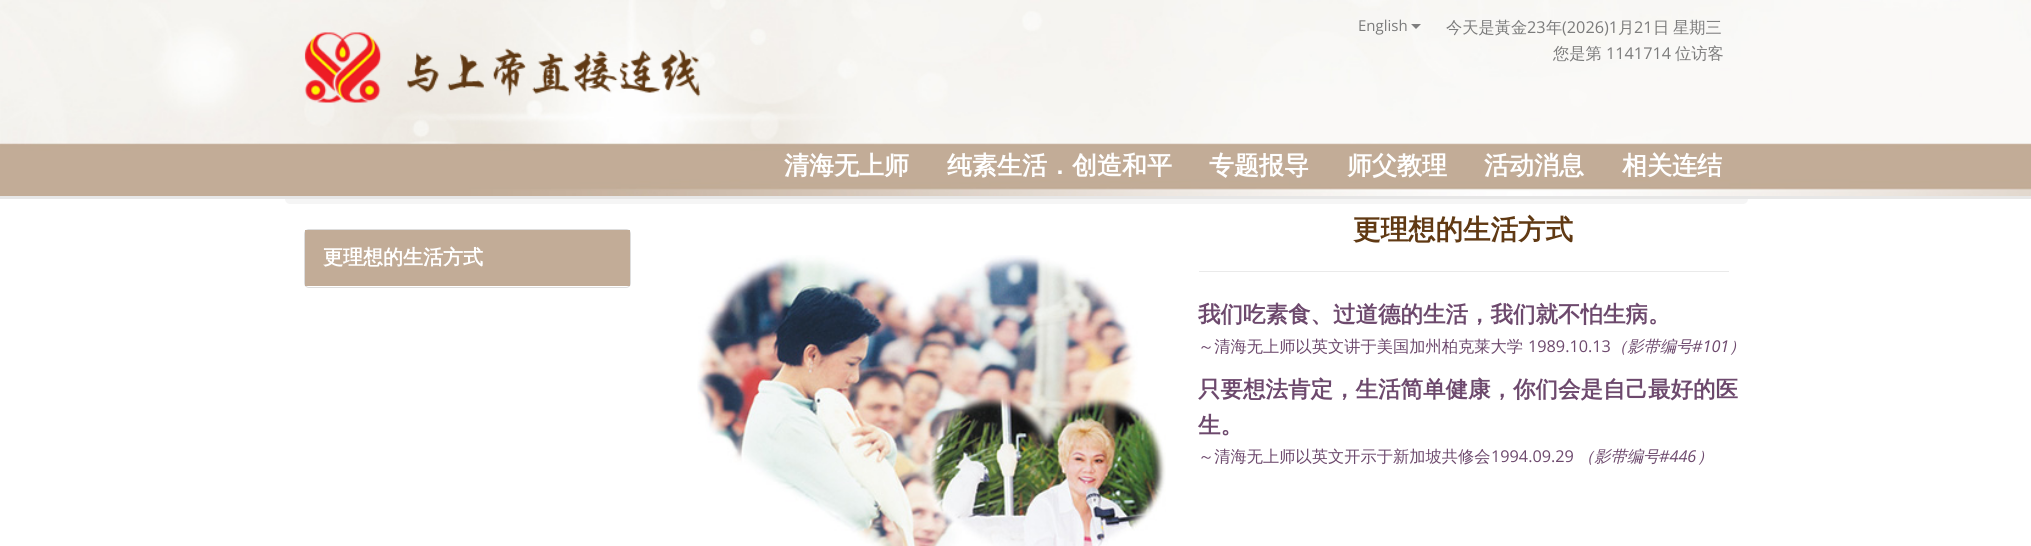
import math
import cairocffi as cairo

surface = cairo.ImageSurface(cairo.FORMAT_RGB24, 2031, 546)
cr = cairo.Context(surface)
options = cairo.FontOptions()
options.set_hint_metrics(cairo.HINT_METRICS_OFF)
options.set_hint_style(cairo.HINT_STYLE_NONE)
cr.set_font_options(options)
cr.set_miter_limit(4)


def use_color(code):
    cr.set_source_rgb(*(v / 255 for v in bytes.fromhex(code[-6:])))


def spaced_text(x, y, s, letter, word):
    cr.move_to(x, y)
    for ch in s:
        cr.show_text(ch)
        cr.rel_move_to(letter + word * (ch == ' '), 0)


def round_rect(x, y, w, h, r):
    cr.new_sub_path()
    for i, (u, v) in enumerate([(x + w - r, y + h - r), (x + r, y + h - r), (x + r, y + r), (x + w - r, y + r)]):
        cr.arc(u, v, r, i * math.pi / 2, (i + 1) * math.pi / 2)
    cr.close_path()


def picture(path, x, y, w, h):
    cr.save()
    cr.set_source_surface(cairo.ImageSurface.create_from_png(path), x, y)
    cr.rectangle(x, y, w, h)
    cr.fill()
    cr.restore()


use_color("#ffffff")
cr.paint()
use_color("#f5f5f5")
round_rect(285, 143, 1463, 61, 5)
cr.fill()
picture("img1.png", 0, 0, 2031, 196)
use_color("#e7e7e7")
cr.rectangle(0, 196, 2031, 3)
cr.fill()
picture("img2.png", 304, 32, 397, 71)
cr.select_font_face("Open Sans")
cr.set_font_size(15)
use_color("#7b7b7b")
cr.move_to(1358, 31)
cr.show_text("English")
use_color("#808080")
cr.new_path()
cr.move_to(1411, 24)
cr.line_to(1421, 24)
cr.line_to(1416, 29)
cr.close_path()
cr.fill()
cr.select_font_face("WenQuanYi Zen Hei Medium")
cr.set_font_size(16.25)
use_color("#7b7b7b")
cr.move_to(1446, 33)
cr.show_text("今天是黃金")
cr.select_font_face("Open Sans")
cr.move_to(1527, 33)
cr.show_text("23")
cr.select_font_face("WenQuanYi Zen Hei Medium")
cr.move_to(1546, 33)
cr.show_text("年")
cr.select_font_face("Open Sans")
cr.move_to(1562, 33)
cr.show_text("(2026)1")
cr.select_font_face("WenQuanYi Zen Hei Medium")
cr.move_to(1618, 33)
cr.show_text("月")
cr.select_font_face("Open Sans")
cr.move_to(1634, 33)
cr.show_text("21")
cr.select_font_face("WenQuanYi Zen Hei Medium")
spaced_text(1653, 33, "日 星期三", 0, -1)
cr.move_to(1553, 59)
cr.show_text("您是第")
cr.select_font_face("Open Sans")
cr.move_to(1606, 59)
cr.show_text("1141714")
cr.select_font_face("WenQuanYi Zen Hei Medium")
cr.move_to(1675, 59)
cr.show_text("位访客")
cr.select_font_face("WenQuanYi Zen Hei", cairo.FONT_SLANT_NORMAL, cairo.FONT_WEIGHT_BOLD)
cr.set_font_size(25)
use_color("#ffffff")
cr.move_to(784, 174)
cr.show_text("清海无上师")
cr.move_to(947, 174)
cr.show_text("纯素生活．创造和平")
cr.move_to(1209, 174)
cr.show_text("专题报导")
cr.move_to(1347, 174)
cr.show_text("师父教理")
cr.move_to(1484, 174)
cr.show_text("活动消息")
cr.move_to(1622, 174)
cr.show_text("相关连结")
round_rect(304.5, 229.5, 326, 58, 4.5)
use_color("#dddddd")
cr.set_line_width(1)
cr.stroke()
use_color("#c2ac97")
cr.rectangle(305, 230, 325, 56)
cr.fill()
cr.set_font_size(20)
use_color("#ffffff")
cr.move_to(323, 264)
cr.show_text("更理想的生活方式")
cr.set_font_size(27.5)
use_color("#603913")
cr.move_to(1353, 239)
cr.show_text("更理想的生活方式")
picture("img3.png", 697, 255, 469, 291)
use_color("#eaeaea")
cr.rectangle(1199, 271, 530, 1)
cr.fill()
cr.set_font_size(22.5)
use_color("#6d496d")
cr.move_to(1198, 322)
cr.show_text("我们吃素食、过道德的生活，我们就不怕生病。")
cr.select_font_face("WenQuanYi Zen Hei Medium")
cr.set_font_size(16.25)
cr.move_to(1198, 352)
cr.show_text("～清海无上师以英文讲于美国加州柏克莱大学")
cr.select_font_face("Open Sans")
cr.move_to(1528, 352)
cr.show_text("1989.10.13")
cr.select_font_face("WenQuanYi Zen Hei Medium", cairo.FONT_SLANT_ITALIC)
cr.move_to(1611, 352)
cr.show_text("（影带编号")
cr.select_font_face("Open Sans", cairo.FONT_SLANT_ITALIC)
cr.move_to(1692, 352)
cr.show_text("#101")
cr.select_font_face("WenQuanYi Zen Hei Medium", cairo.FONT_SLANT_ITALIC)
cr.move_to(1729, 352)
cr.show_text("）")
cr.select_font_face("WenQuanYi Zen Hei", cairo.FONT_SLANT_NORMAL, cairo.FONT_WEIGHT_BOLD)
cr.set_font_size(22.5)
cr.move_to(1198, 397)
cr.show_text("只要想法肯定，生活简单健康，你们会是自己最好的医")
cr.move_to(1198, 433)
cr.show_text("生。")
cr.select_font_face("WenQuanYi Zen Hei Medium")
cr.set_font_size(16.25)
cr.move_to(1198, 462)
cr.show_text("～清海无上师以英文开示于新加坡共修会")
cr.select_font_face("Open Sans")
cr.move_to(1491, 462)
cr.show_text("1994.09.29")
cr.select_font_face("WenQuanYi Zen Hei Medium", cairo.FONT_SLANT_ITALIC)
cr.move_to(1578, 462)
cr.show_text("（影带编号")
cr.select_font_face("Open Sans", cairo.FONT_SLANT_ITALIC)
cr.move_to(1659, 462)
cr.show_text("#446")
cr.select_font_face("WenQuanYi Zen Hei Medium", cairo.FONT_SLANT_ITALIC)
cr.move_to(1697, 462)
cr.show_text("）")
surface.write_to_png("result.png")
